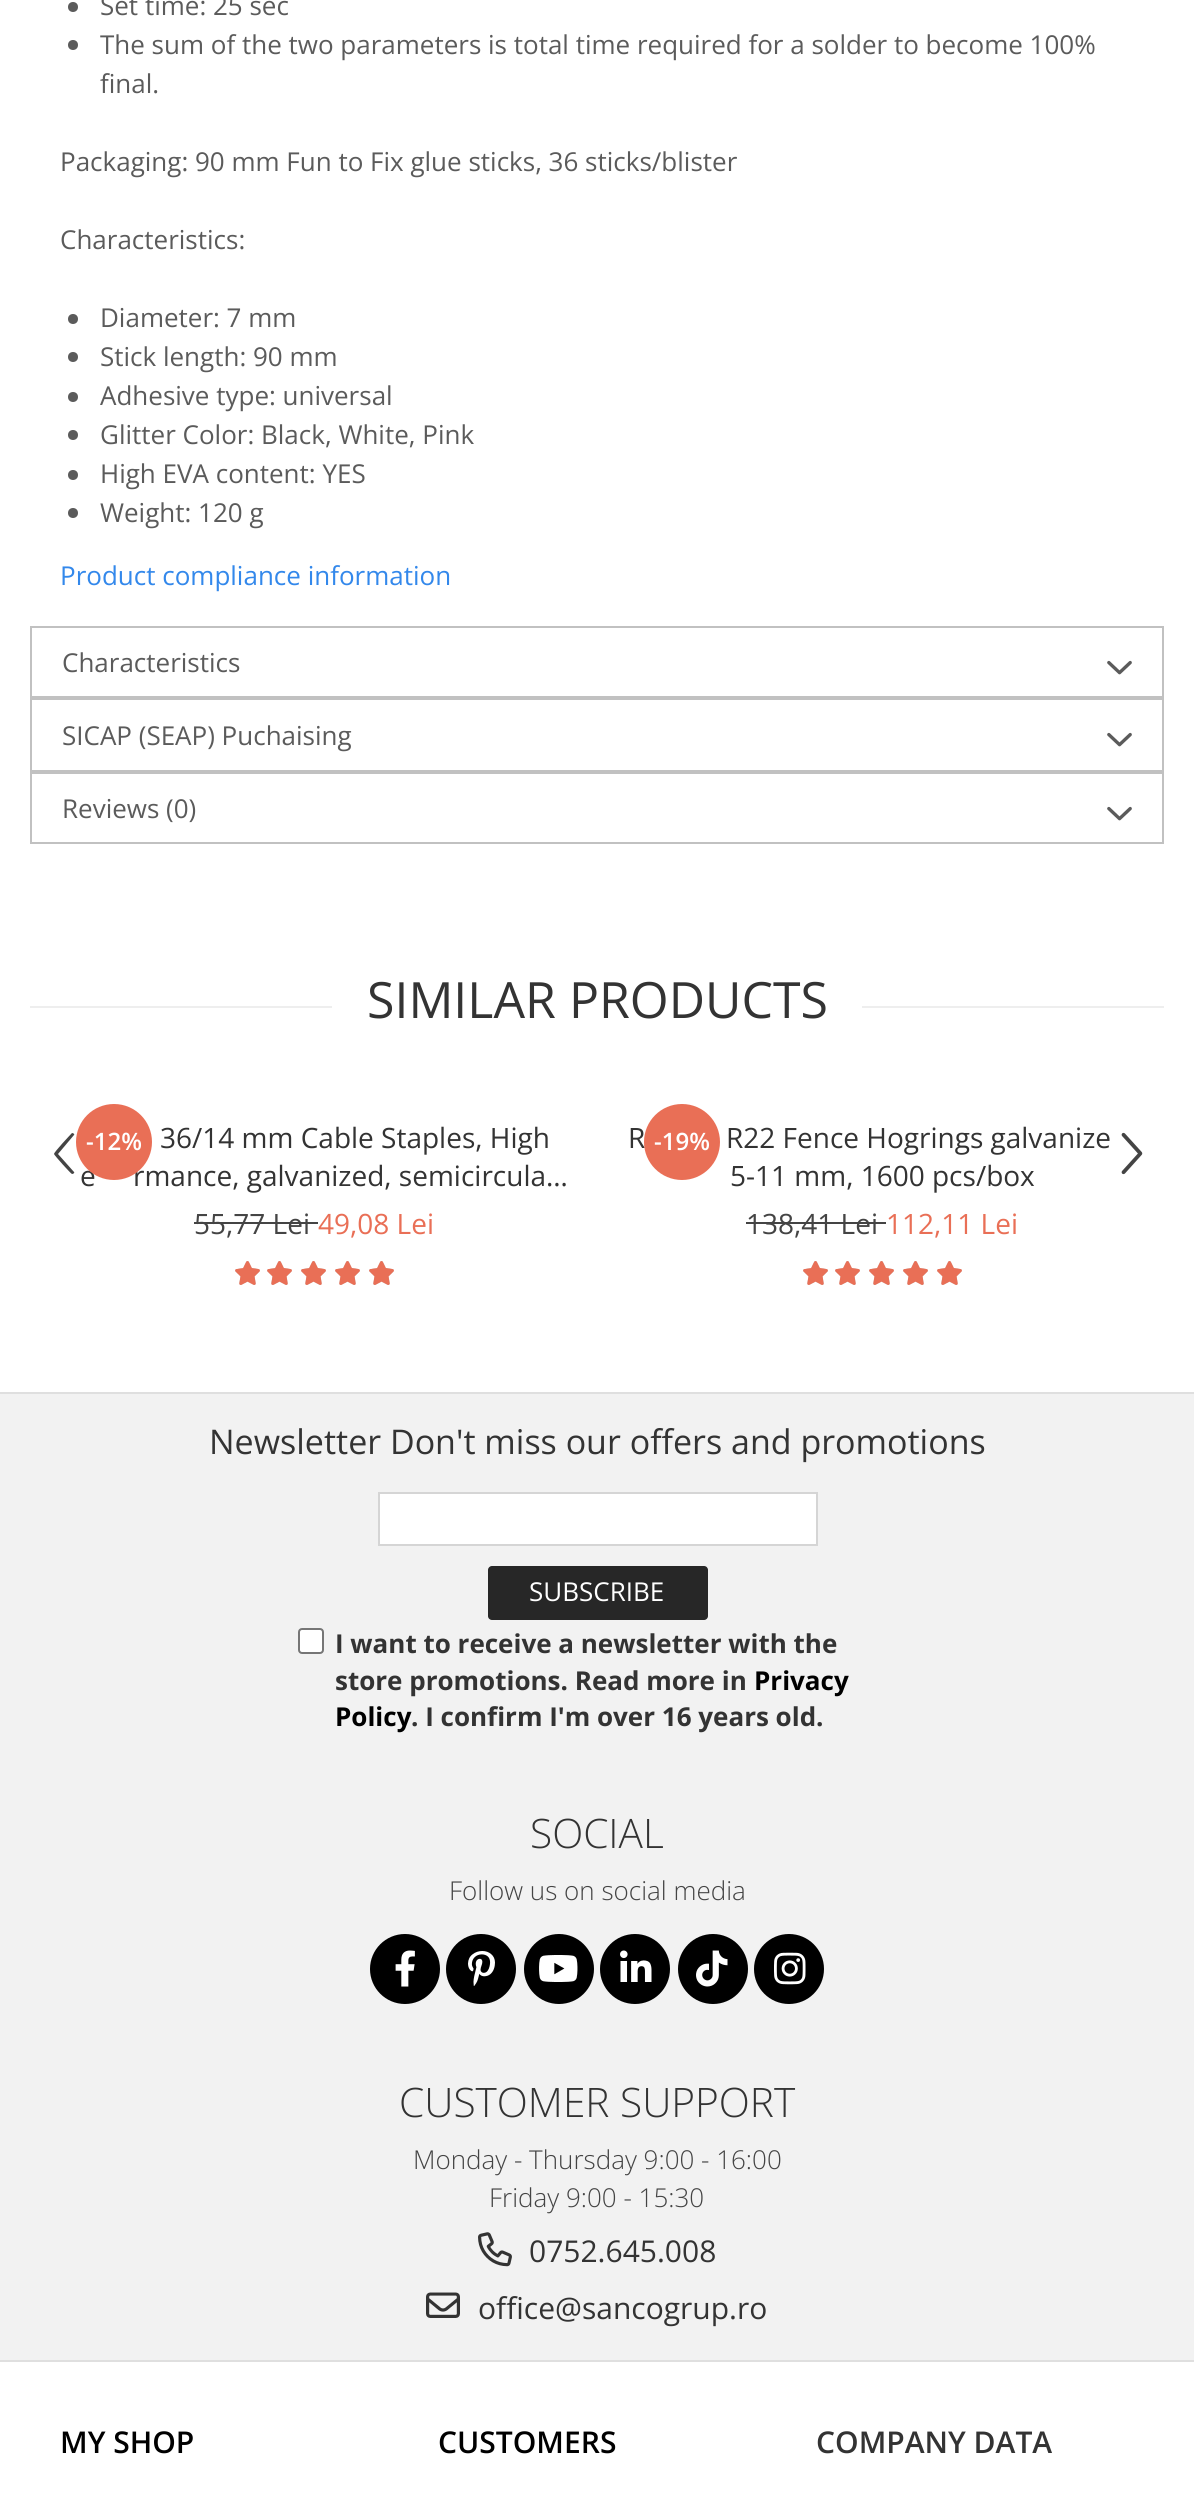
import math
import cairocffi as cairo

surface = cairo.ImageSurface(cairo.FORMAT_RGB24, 1194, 2510)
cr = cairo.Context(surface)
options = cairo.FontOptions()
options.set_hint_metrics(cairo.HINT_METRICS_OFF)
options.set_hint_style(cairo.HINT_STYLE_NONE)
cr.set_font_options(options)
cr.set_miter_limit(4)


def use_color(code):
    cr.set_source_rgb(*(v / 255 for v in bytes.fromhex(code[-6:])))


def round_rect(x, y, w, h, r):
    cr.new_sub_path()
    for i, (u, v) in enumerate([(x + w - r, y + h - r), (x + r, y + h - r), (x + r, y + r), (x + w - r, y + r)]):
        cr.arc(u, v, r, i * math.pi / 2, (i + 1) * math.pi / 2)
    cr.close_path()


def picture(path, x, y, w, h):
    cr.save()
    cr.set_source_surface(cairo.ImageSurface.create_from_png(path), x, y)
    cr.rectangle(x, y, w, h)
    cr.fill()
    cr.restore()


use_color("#ffffff")
cr.paint()
use_color("#5b5b5b")
cr.arc(73, 7, 5, 0, 2 * math.pi)
cr.fill()
cr.select_font_face("Open Sans")
cr.set_font_size(26)
cr.move_to(100, 15)
cr.show_text("Set time: 25 sec")
cr.new_path()
cr.arc(73, 45, 5, 0, 2 * math.pi)
cr.fill()
cr.move_to(100, 54)
cr.show_text("The sum of the two parameters is total time required for a solder to become 100%")
cr.move_to(100, 93)
cr.show_text("final.")
cr.move_to(60, 171)
cr.show_text("Packaging: 90 mm Fun to Fix glue sticks, 36 sticks/blister")
cr.move_to(60, 249)
cr.show_text("Characteristics:")
cr.new_path()
cr.arc(73, 319, 5, 0, 2 * math.pi)
cr.fill()
cr.move_to(100, 327)
cr.show_text("Diameter: 7 mm")
cr.new_path()
cr.arc(73, 357, 5, 0, 2 * math.pi)
cr.fill()
cr.move_to(100, 366)
cr.show_text("Stick length: 90 mm")
cr.new_path()
cr.arc(73, 397, 5, 0, 2 * math.pi)
cr.fill()
cr.move_to(100, 405)
cr.show_text("Adhesive type: universal")
cr.new_path()
cr.arc(73, 435, 5, 0, 2 * math.pi)
cr.fill()
cr.move_to(100, 444)
cr.show_text("Glitter Color: Black, White, Pink")
cr.new_path()
cr.arc(73, 475, 5, 0, 2 * math.pi)
cr.fill()
cr.move_to(100, 483)
cr.show_text("High EVA content: YES")
cr.new_path()
cr.arc(73, 513, 5, 0, 2 * math.pi)
cr.fill()
cr.move_to(100, 522)
cr.show_text("Weight: 120 g")
use_color("#3388eb")
cr.move_to(60, 585)
cr.show_text("Product compliance information")
cr.rectangle(31, 627, 1132, 70)
use_color("#c1c1c1")
cr.stroke()
use_color("#5b5b5b")
cr.move_to(62, 672)
cr.show_text("Characteristics")
picture("img1.png", 1107, 660, 25, 15)
cr.rectangle(31, 699, 1132, 72)
use_color("#c1c1c1")
cr.stroke()
use_color("#5b5b5b")
cr.move_to(62, 745)
cr.show_text("SICAP (SEAP) Puchaising")
picture("img1.png", 1107, 732, 25, 15)
cr.rectangle(31, 773, 1132, 70)
use_color("#c1c1c1")
cr.stroke()
use_color("#5b5b5b")
cr.move_to(62, 818)
cr.show_text("Reviews (0)")
picture("img1.png", 1107, 806, 25, 15)
use_color("#eeeeee")
cr.rectangle(30, 1006, 1134, 2)
cr.fill()
use_color("#ffffff")
cr.rectangle(332, 1006, 530, 2)
cr.fill()
cr.set_font_size(50)
use_color("#333333")
cr.move_to(367, 1018)
cr.show_text("SIMILAR PRODUCTS")
cr.set_font_size(28)
cr.move_to(160, 1148)
cr.show_text("36/14 mm Cable Staples, High")
cr.move_to(80, 1186)
cr.show_text("e")
cr.move_to(133, 1186)
cr.show_text("rmance, galvanized, semicircula…")
use_color("#444444")
cr.move_to(194, 1234)
cr.show_text("55,77 Lei")
cr.rectangle(194, 1222, 124, 2)
cr.fill()
use_color("#e96f56")
cr.move_to(318, 1234)
cr.show_text("49,08 Lei")
picture("img2.png", 235, 1261, 25, 24)
picture("img3.png", 235, 1261, 25, 24)
picture("img2.png", 267, 1261, 25, 24)
picture("img3.png", 267, 1261, 25, 24)
picture("img2.png", 301, 1261, 25, 24)
picture("img3.png", 301, 1261, 25, 24)
picture("img2.png", 335, 1261, 25, 24)
picture("img3.png", 335, 1261, 25, 24)
picture("img2.png", 369, 1261, 25, 24)
picture("img3.png", 369, 1261, 25, 24)
cr.arc(114, 1142, 38, 0, 2 * math.pi)
cr.fill()
cr.select_font_face("Open Sans SemiBold")
cr.set_font_size(24)
use_color("#ffffff")
cr.move_to(86, 1150)
cr.show_text("-12%")
cr.select_font_face("Open Sans")
cr.set_font_size(28)
use_color("#333333")
cr.move_to(628, 1148)
cr.show_text("R")
cr.move_to(726, 1148)
cr.show_text("R22 Fence Hogrings galvanize")
cr.move_to(730, 1186)
cr.show_text("5-11 mm, 1600 pcs/box")
use_color("#444444")
cr.move_to(746, 1234)
cr.show_text("138,41 Lei")
cr.rectangle(746, 1222, 140, 2)
cr.fill()
use_color("#e96f56")
cr.move_to(886, 1234)
cr.show_text("112,11 Lei")
picture("img2.png", 803, 1261, 25, 24)
picture("img3.png", 803, 1261, 25, 24)
picture("img2.png", 835, 1261, 25, 24)
picture("img3.png", 835, 1261, 25, 24)
picture("img2.png", 869, 1261, 25, 24)
picture("img3.png", 869, 1261, 25, 24)
picture("img2.png", 903, 1261, 25, 24)
picture("img3.png", 903, 1261, 25, 24)
picture("img2.png", 937, 1261, 25, 24)
picture("img3.png", 937, 1261, 25, 24)
cr.arc(682, 1142, 38, 0, 2 * math.pi)
cr.fill()
cr.select_font_face("Open Sans SemiBold")
cr.set_font_size(24)
use_color("#ffffff")
cr.move_to(654, 1150)
cr.show_text("-19%")
use_color("#444444")
cr.new_path()
cr.move_to(58, 1154)
cr.line_to(74, 1135)
cr.curve_to(75, 1134, 73, 1133, 72, 1133)
cr.curve_to(71, 1134, 54, 1152, 54, 1154)
cr.curve_to(54, 1155, 71, 1174, 72, 1174)
cr.curve_to(73, 1174, 75, 1173, 74, 1172)
cr.close_path()
cr.fill()
picture("img4.png", 1121, 1132, 22, 43)
use_color("#f2f2f2")
cr.rectangle(0, 1394, 1194, 966)
cr.fill()
use_color("#dfdfdf")
cr.rectangle(0, 1392, 1194, 2)
cr.fill()
cr.rectangle(0, 2360, 1194, 2)
cr.fill()
cr.select_font_face("Open Sans")
cr.set_font_size(34)
use_color("#333333")
cr.move_to(209, 1454)
cr.show_text("Newsletter Don't miss our offers and promotions")
use_color("#ffffff")
cr.rectangle(379, 1493, 438, 52)
cr.fill_preserve()
use_color("#d5d5d5")
cr.stroke()
use_color("#272727")
round_rect(488, 1566, 220, 54, 4)
cr.fill()
cr.set_font_size(26)
use_color("#ffffff")
cr.move_to(529, 1601)
cr.show_text("SUBSCRIBE")
round_rect(299, 1629, 24, 24, 3)
cr.fill_preserve()
use_color("#767676")
cr.stroke()
cr.select_font_face("Open Sans", cairo.FONT_SLANT_NORMAL, cairo.FONT_WEIGHT_BOLD)
use_color("#333333")
cr.move_to(335, 1653)
cr.show_text("I want to receive a newsletter with the")
cr.move_to(335, 1690)
cr.show_text("store promotions. Read more in")
use_color("#000000")
cr.move_to(754, 1690)
cr.show_text("Privacy")
cr.move_to(335, 1726)
cr.show_text("Policy")
use_color("#333333")
cr.move_to(411, 1726)
cr.show_text(". I confirm I'm over 16 years old.")
cr.select_font_face("Open Sans Light")
cr.set_font_size(40.6)
cr.move_to(530, 1848)
cr.show_text("SOCIAL")
cr.set_font_size(26)
use_color("#444444")
cr.move_to(449, 1900)
cr.show_text("Follow us on social media")
use_color("#000000")
cr.new_path()
cr.arc(405, 1969, 35, 0, 2 * math.pi)
cr.fill()
picture("img5.png", 395, 1950, 20, 37)
cr.arc(481, 1969, 35, 0, 2 * math.pi)
cr.fill()
picture("img6.png", 468, 1951, 27, 35)
cr.arc(559, 1969, 35, 0, 2 * math.pi)
cr.fill()
picture("img7.png", 539, 1955, 39, 27)
cr.arc(635, 1969, 35, 0, 2 * math.pi)
cr.fill()
picture("img8.png", 620, 1950, 32, 32)
cr.arc(713, 1969, 35, 0, 2 * math.pi)
cr.fill()
picture("img9.png", 696, 1950, 32, 37)
cr.arc(789, 1969, 35, 0, 2 * math.pi)
cr.fill()
picture("img10.png", 774, 1952, 32, 33)
cr.set_font_size(40.6)
use_color("#333333")
cr.move_to(399, 2117)
cr.show_text("CUSTOMER SUPPORT")
cr.set_font_size(26)
use_color("#444444")
cr.move_to(413, 2169)
cr.show_text("Monday - Thursday 9:00 - 16:00")
cr.move_to(489, 2207)
cr.show_text("Friday 9:00 - 15:30")
picture("img11.png", 478, 2232, 34, 35)
cr.select_font_face("Open Sans")
cr.set_font_size(30)
use_color("#333333")
cr.move_to(529, 2262)
cr.show_text("0752.645.008")
picture("img12.png", 426, 2292, 34, 26)
cr.move_to(478, 2319)
cr.show_text("office@sancogrup.ro")
cr.select_font_face("Open Sans SemiBold")
use_color("#000000")
cr.move_to(60, 2453)
cr.show_text("MY SHOP")
cr.move_to(438, 2453)
cr.show_text("CUSTOMERS")
use_color("#333333")
cr.move_to(816, 2453)
cr.show_text("COMPANY DATA")
surface.write_to_png("result.png")
